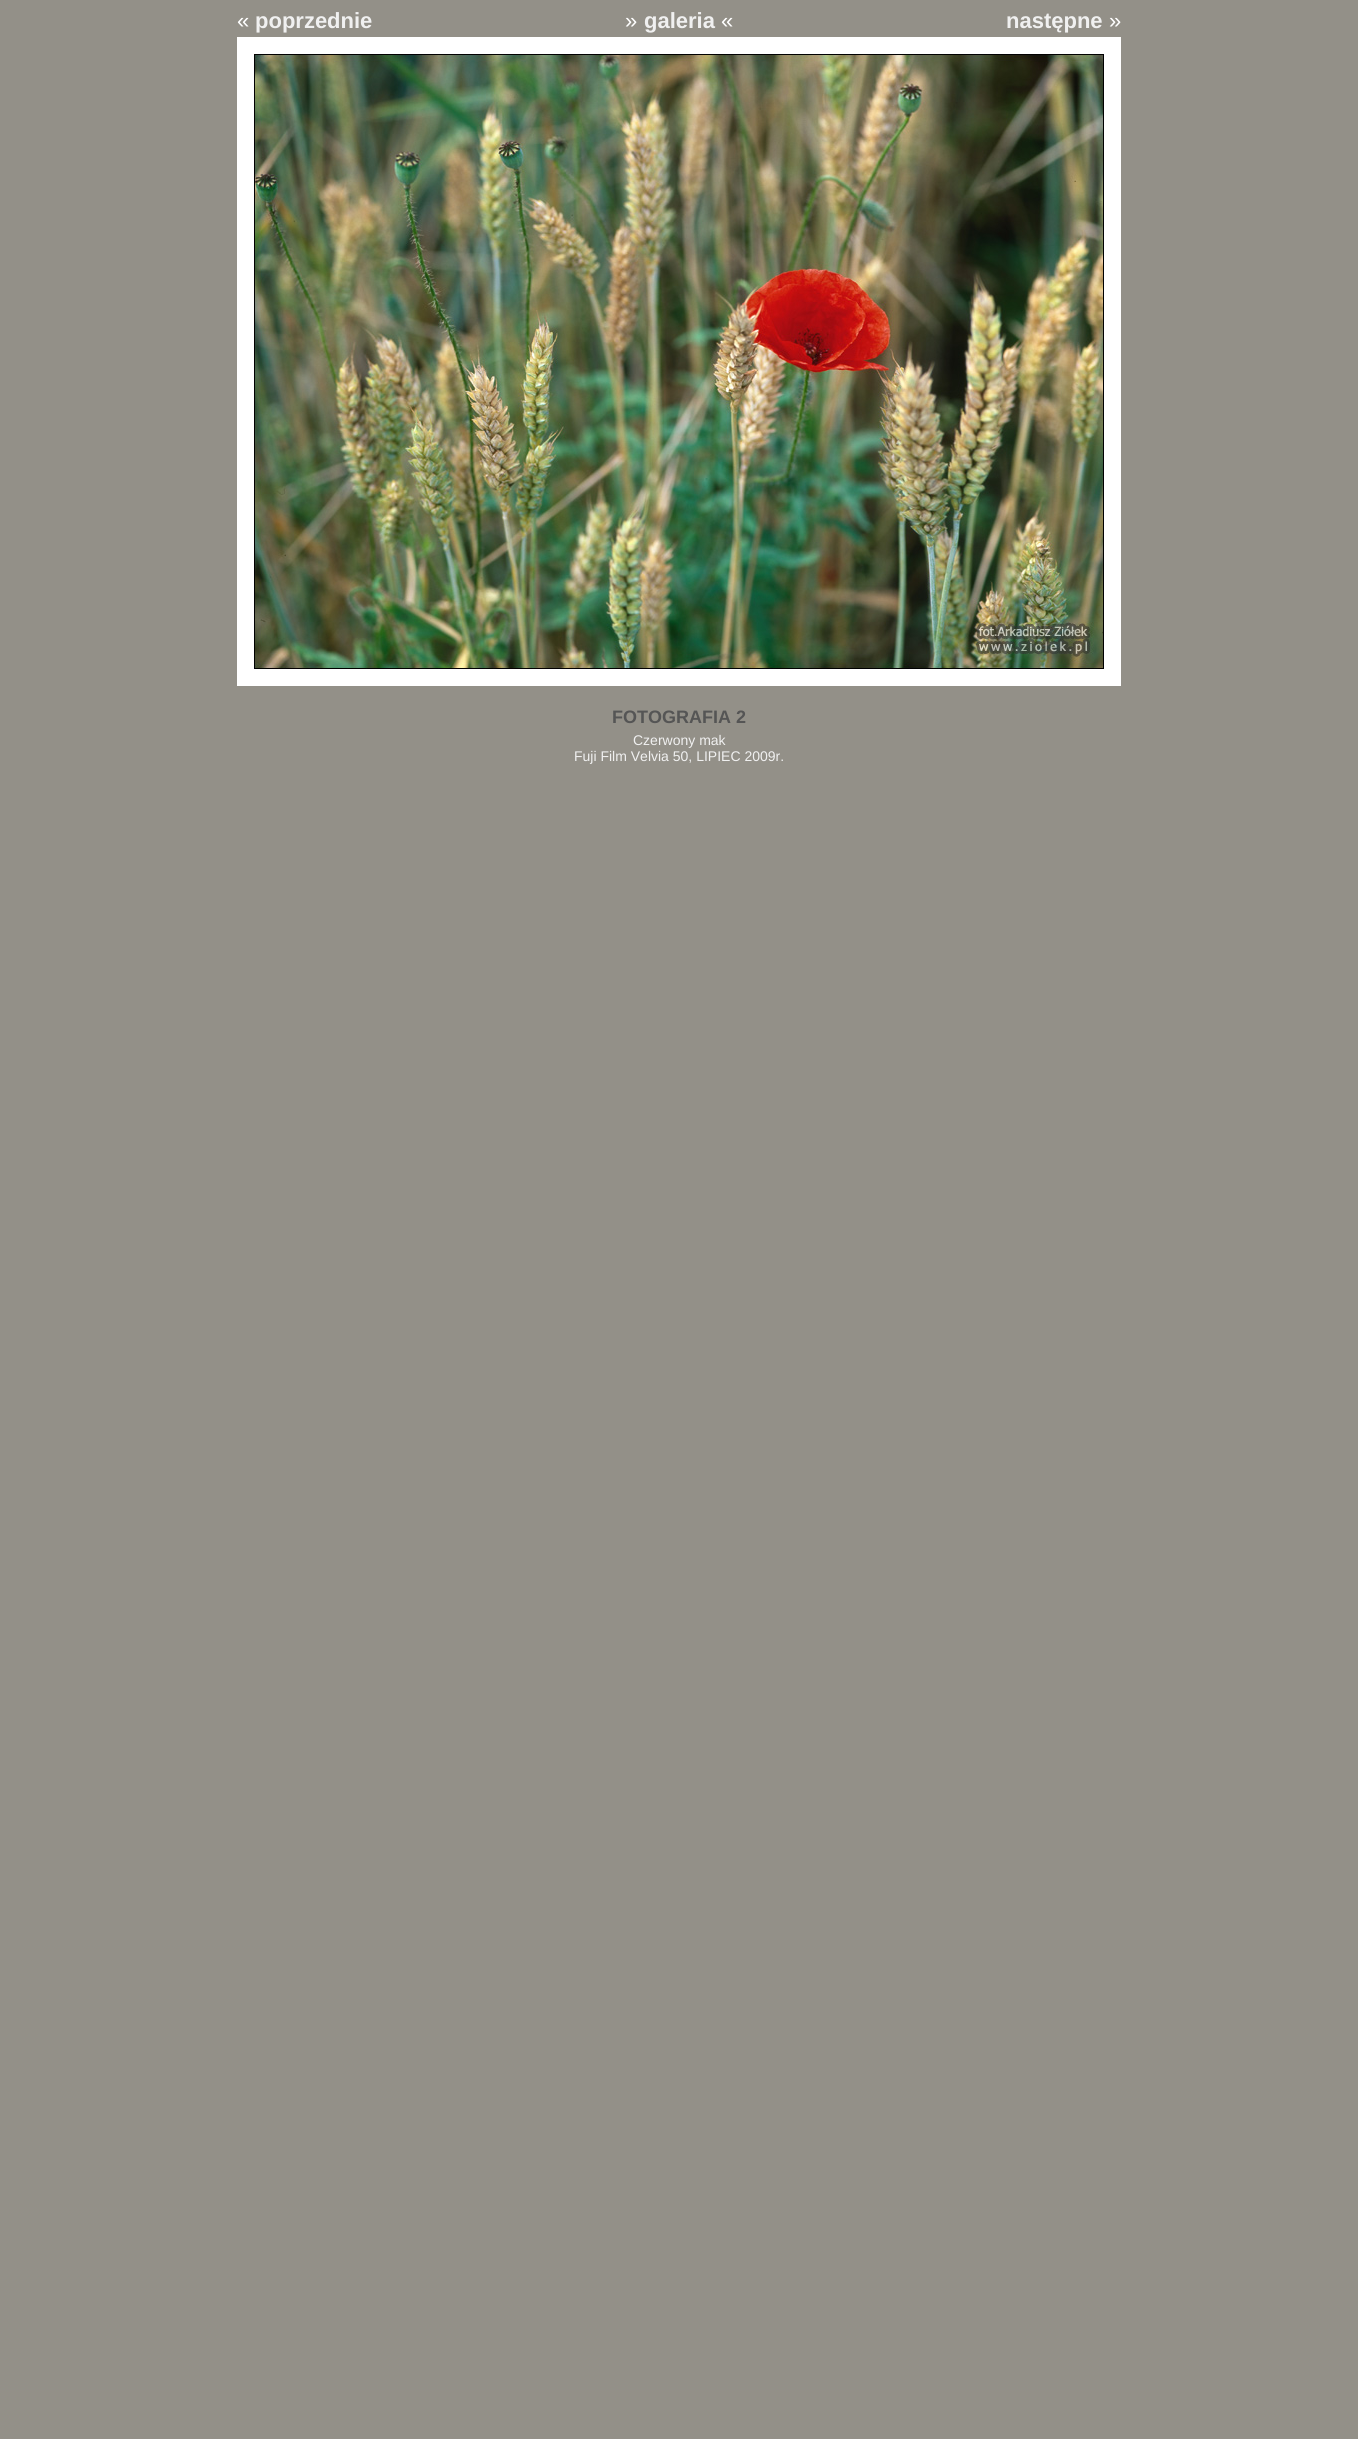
import math
import cairocffi as cairo

surface = cairo.ImageSurface(cairo.FORMAT_RGB24, 1358, 2439)
cr = cairo.Context(surface)
options = cairo.FontOptions()
options.set_hint_metrics(cairo.HINT_METRICS_OFF)
options.set_hint_style(cairo.HINT_STYLE_NONE)
cr.set_font_options(options)
cr.set_miter_limit(4)


def use_color(code):
    cr.set_source_rgb(*(v / 255 for v in bytes.fromhex(code[-6:])))


def picture(path, x, y, w, h):
    cr.save()
    cr.set_source_surface(cairo.ImageSurface.create_from_png(path), x, y)
    cr.rectangle(x, y, w, h)
    cr.fill()
    cr.restore()


use_color("#939088")
cr.paint()
cr.select_font_face("Liberation Sans")
cr.set_font_size(22)
use_color("#ffffff")
cr.move_to(237, 28)
cr.show_text("«")
cr.select_font_face("Liberation Sans", cairo.FONT_SLANT_NORMAL, cairo.FONT_WEIGHT_BOLD)
use_color("#f0f0f0")
cr.move_to(255, 28)
cr.show_text("poprzednie")
cr.select_font_face("Liberation Sans")
use_color("#ffffff")
cr.move_to(625, 28)
cr.show_text("»")
cr.select_font_face("Liberation Sans", cairo.FONT_SLANT_NORMAL, cairo.FONT_WEIGHT_BOLD)
use_color("#f0f0f0")
cr.move_to(644, 28)
cr.show_text("galeria")
cr.select_font_face("Liberation Sans")
use_color("#ffffff")
cr.move_to(721, 28)
cr.show_text("«")
cr.select_font_face("Liberation Sans", cairo.FONT_SLANT_NORMAL, cairo.FONT_WEIGHT_BOLD)
use_color("#f0f0f0")
cr.move_to(1006, 28)
cr.show_text("następne")
cr.select_font_face("Liberation Sans")
use_color("#ffffff")
cr.move_to(1109, 28)
cr.show_text("»")
cr.rectangle(237, 37, 884, 649)
cr.fill()
picture("img1.png", 254, 54, 850, 615)
cr.select_font_face("Liberation Sans", cairo.FONT_SLANT_NORMAL, cairo.FONT_WEIGHT_BOLD)
cr.set_font_size(18)
use_color("#555555")
cr.move_to(612, 723)
cr.show_text("FOTOGRAFIA 2")
cr.select_font_face("Liberation Sans")
cr.set_font_size(14)
use_color("#f0f0f0")
cr.move_to(633, 745)
cr.show_text("Czerwony mak")
cr.move_to(574, 761)
cr.show_text("Fuji Film Velvia 50, LIPIEC 2009r.")
surface.write_to_png("result.png")
